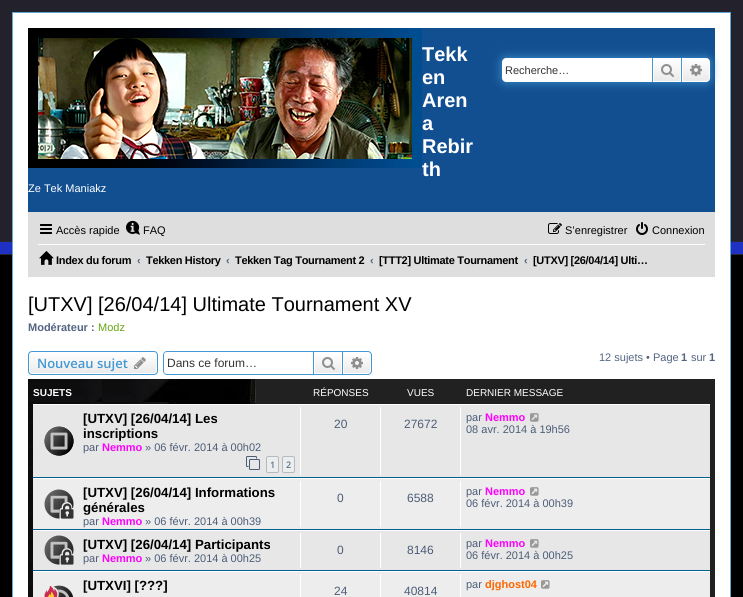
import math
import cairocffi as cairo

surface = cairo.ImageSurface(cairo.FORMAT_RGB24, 743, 597)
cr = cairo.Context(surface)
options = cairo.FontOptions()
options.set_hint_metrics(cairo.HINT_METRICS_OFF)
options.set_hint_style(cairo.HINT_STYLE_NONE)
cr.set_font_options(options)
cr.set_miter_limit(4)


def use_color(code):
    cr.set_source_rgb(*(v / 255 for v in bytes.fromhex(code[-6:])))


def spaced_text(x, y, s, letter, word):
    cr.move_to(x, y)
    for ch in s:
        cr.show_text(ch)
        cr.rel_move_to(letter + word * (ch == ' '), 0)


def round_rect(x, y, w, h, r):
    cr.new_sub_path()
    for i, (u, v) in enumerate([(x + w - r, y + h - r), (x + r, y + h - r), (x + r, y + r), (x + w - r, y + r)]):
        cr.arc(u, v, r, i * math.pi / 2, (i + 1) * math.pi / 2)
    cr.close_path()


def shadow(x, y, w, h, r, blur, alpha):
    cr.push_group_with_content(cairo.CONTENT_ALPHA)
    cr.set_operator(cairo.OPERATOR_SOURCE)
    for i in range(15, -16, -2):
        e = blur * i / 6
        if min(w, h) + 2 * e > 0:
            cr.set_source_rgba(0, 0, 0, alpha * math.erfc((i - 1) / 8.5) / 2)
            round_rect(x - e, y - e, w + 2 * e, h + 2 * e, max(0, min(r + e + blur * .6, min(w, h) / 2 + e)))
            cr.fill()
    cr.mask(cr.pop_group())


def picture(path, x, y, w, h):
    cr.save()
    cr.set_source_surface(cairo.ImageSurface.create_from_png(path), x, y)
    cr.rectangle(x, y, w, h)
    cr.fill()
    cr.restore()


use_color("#000000")
cr.paint()
picture("img1.png", 0, 0, 743, 255)
use_color("#ffffff")
cr.rectangle(12.5, 12.5, 718, 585)
cr.fill_preserve()
use_color("#5fa8d3")
cr.set_line_width(1)
cr.stroke()
use_color("#124f91")
cr.rectangle(28, 28, 687, 184)
cr.fill()
picture("img2.png", 28, 28, 394, 140)
cr.select_font_face("Liberation Sans", cairo.FONT_SLANT_NORMAL, cairo.FONT_WEIGHT_BOLD)
cr.set_font_size(20)
use_color("#ffffff")
cr.move_to(422, 61)
cr.show_text("Tekk")
cr.move_to(422, 84)
cr.show_text("en")
cr.move_to(422, 107)
cr.show_text("Aren")
cr.move_to(422, 130)
cr.show_text("a")
cr.move_to(422, 153)
cr.show_text("Rebir")
cr.move_to(422, 176)
cr.show_text("th")
cr.select_font_face("Liberation Sans")
cr.set_font_size(11)
cr.move_to(28, 192)
cr.show_text("Ze Tek Maniakz")
use_color("#4498d4")
shadow(502, 58, 208, 24, 4, 5, 1)
use_color("#ffffff")
cr.new_path()
cr.move_to(506, 58)
cr.line_to(652, 58)
cr.line_to(652, 82)
cr.line_to(506, 82)
cr.curve_to(504, 82, 502, 80, 502, 78)
cr.line_to(502, 62)
cr.curve_to(502, 60, 504, 58, 506, 58)
cr.close_path()
cr.fill()
use_color("#333333")
cr.move_to(505, 74)
cr.show_text("Recherche…")
gradient = cairo.LinearGradient(667, 58, 667, 82)
gradient.add_color_stop_rgba(0, 1, 1, 1, 1)
gradient.add_color_stop_rgba(1, 0.914, 0.914, 0.914, 1)
cr.set_source(gradient)
cr.rectangle(654, 59, 26, 22)
cr.fill()
cr.rectangle(653.5, 58.5, 27, 23)
use_color("#ffffff")
cr.stroke()
use_color("#4498d4")
cr.rectangle(681, 58, 1, 24)
cr.fill()
cr.rectangle(652, 58, 1, 24)
cr.fill()
picture("img3.png", 661, 64, 13, 13)
gradient = cairo.LinearGradient(696, 58, 696, 82)
gradient.add_color_stop_rgba(0, 1, 1, 1, 1)
gradient.add_color_stop_rgba(1, 0.914, 0.914, 0.914, 1)
cr.set_source(gradient)
cr.new_path()
cr.move_to(682.5, 58.5)
cr.line_to(706, 58.5)
cr.curve_to(708, 58.5, 709.5, 60, 709.5, 62)
cr.line_to(709.5, 78)
cr.curve_to(709.5, 80, 708, 81.5, 706, 81.5)
cr.line_to(682.5, 81.5)
cr.close_path()
cr.fill_preserve()
use_color("#ffffff")
cr.stroke()
picture("img4.png", 690, 64, 12, 12)
use_color("#dedede")
cr.rectangle(28, 212, 687, 65)
cr.fill()
picture("img5.png", 40, 224, 12, 10)
use_color("#000000")
cr.move_to(56, 234)
cr.show_text("Accès rapide")
picture("img6.png", 126, 220, 14, 15)
cr.move_to(143, 234)
cr.show_text("FAQ")
picture("img7.png", 548, 223, 14, 11)
cr.move_to(565, 234)
cr.show_text("S’enregistrer")
picture("img8.png", 636, 222, 12, 13)
cr.move_to(652, 234)
cr.show_text("Connexion")
use_color("#ffffff")
cr.rectangle(38, 244, 667, 1)
cr.fill()
picture("img9.png", 39, 251, 15, 14)
cr.select_font_face("Liberation Sans", cairo.FONT_SLANT_NORMAL, cairo.FONT_WEIGHT_BOLD)
use_color("#000000")
spaced_text(56, 264, "Index du forum", -0.3, 0)
use_color("#536482")
cr.move_to(137, 264)
cr.show_text("‹")
use_color("#000000")
spaced_text(146, 264, "Tekken History", -0.3, 0)
use_color("#536482")
cr.move_to(226, 264)
cr.show_text("‹")
use_color("#000000")
spaced_text(235, 264, "Tekken Tag Tournament 2", -0.3, 0)
use_color("#536482")
cr.move_to(370, 264)
cr.show_text("‹")
cr.save()
cr.rectangle(379, 248, 139, 24)
cr.clip()
use_color("#000000")
spaced_text(379, 264, "[TTT2] Ultimate Tournament", -0.3, 0)
cr.restore()
cr.move_to(524, 264)
cr.show_text("‹")
use_color("#000000")
spaced_text(533, 264, "[UTXV] [26/04/14] Ulti…", -0.3, 0)
cr.select_font_face("Liberation Sans")
cr.set_font_size(20)
cr.move_to(28, 311)
cr.show_text("[UTXV] [26/04/14] Ultimate Tournament XV")
cr.select_font_face("Liberation Sans", cairo.FONT_SLANT_NORMAL, cairo.FONT_WEIGHT_BOLD)
cr.set_font_size(11)
use_color("#536482")
cr.move_to(28, 331)
cr.show_text("Modérateur :")
cr.select_font_face("Liberation Sans")
use_color("#66a510")
cr.move_to(98, 331)
cr.show_text("Modz")
cr.save()
round_rect(28, 351, 130, 24, 4)
cr.clip()
gradient = cairo.LinearGradient(93, 352, 93, 374)
gradient.add_color_stop_rgba(0, 1, 1, 1, 1)
gradient.add_color_stop_rgba(1, 0.914, 0.914, 0.914, 1)
cr.set_source(gradient)
cr.rectangle(28, 352, 130, 22)
cr.fill()
cr.restore()
round_rect(29.5, 352.5, 127, 21, 2.5)
use_color("#ffffff")
cr.stroke()
round_rect(28.5, 351.5, 129, 23, 3.5)
use_color("#4498d4")
cr.stroke()
cr.select_font_face("Open Sans SemiBold")
cr.set_font_size(13)
cr.move_to(37, 368)
cr.show_text("Nouveau sujet")
picture("img10.png", 134, 357, 12, 12)
cr.set_fill_rule(cairo.FILL_RULE_EVEN_ODD)
cr.new_path()
cr.move_to(167, 351)
cr.line_to(313, 351)
cr.line_to(313, 375)
cr.line_to(167, 375)
cr.curve_to(165, 375, 163, 373, 163, 371)
cr.line_to(163, 355)
cr.curve_to(163, 353, 165, 351, 167, 351)
cr.close_path()
cr.move_to(167, 352)
cr.line_to(313, 352)
cr.line_to(313, 374)
cr.line_to(167, 374)
cr.curve_to(165, 374, 164, 373, 164, 371)
cr.line_to(164, 355)
cr.curve_to(164, 353, 165, 352, 167, 352)
cr.close_path()
cr.fill()
cr.select_font_face("Liberation Sans")
cr.set_font_size(12)
use_color("#333333")
cr.move_to(167, 367)
cr.show_text("Dans ce forum…")
gradient = cairo.LinearGradient(328, 352, 328, 374)
gradient.add_color_stop_rgba(0, 1, 1, 1, 1)
gradient.add_color_stop_rgba(1, 0.914, 0.914, 0.914, 1)
cr.set_source(gradient)
cr.rectangle(315, 355, 26, 18)
cr.fill()
cr.rectangle(313.5, 351.5, 29, 23)
use_color("#4498d4")
cr.stroke()
picture("img11.png", 322, 357, 13, 13)
gradient = cairo.LinearGradient(357, 352, 357, 374)
gradient.add_color_stop_rgba(0, 1, 1, 1, 1)
gradient.add_color_stop_rgba(1, 0.914, 0.914, 0.914, 1)
cr.set_source(gradient)
cr.new_path()
cr.move_to(343.5, 352.5)
cr.line_to(368, 352.5)
cr.curve_to(369.5, 352.5, 370.5, 353.5, 370.5, 355)
cr.line_to(370.5, 371)
cr.curve_to(370.5, 372.5, 369.5, 373.5, 368, 373.5)
cr.line_to(343.5, 373.5)
cr.close_path()
cr.fill_preserve()
use_color("#ffffff")
cr.stroke()
use_color("#4498d4")
cr.new_path()
cr.move_to(343, 351)
cr.line_to(368, 351)
cr.curve_to(370, 351, 372, 353, 372, 355)
cr.line_to(372, 371)
cr.curve_to(372, 373, 370, 375, 368, 375)
cr.line_to(343, 375)
cr.close_path()
cr.move_to(343, 352)
cr.line_to(368, 352)
cr.curve_to(369.5, 352, 371, 353.5, 371, 355)
cr.line_to(371, 371)
cr.curve_to(371, 372.5, 369.5, 374, 368, 374)
cr.line_to(343, 374)
cr.close_path()
cr.fill()
picture("img12.png", 351, 357, 12, 12)
cr.set_font_size(11)
use_color("#536482")
cr.move_to(599, 361)
cr.show_text("12 sujets • Page")
cr.select_font_face("Liberation Sans", cairo.FONT_SLANT_NORMAL, cairo.FONT_WEIGHT_BOLD)
cr.move_to(681, 361)
cr.show_text("1")
cr.select_font_face("Liberation Sans")
cr.move_to(691, 361)
cr.show_text("sur")
cr.select_font_face("Liberation Sans", cairo.FONT_SLANT_NORMAL, cairo.FONT_WEIGHT_BOLD)
cr.move_to(709, 361)
cr.show_text("1")
use_color("#212121")
cr.rectangle(256, 379, 459, 218)
cr.fill()
picture("img13.png", 28, 379, 228, 218)
cr.set_font_size(10)
use_color("#ffffff")
cr.move_to(33, 396)
cr.show_text("SUJETS")
cr.select_font_face("Liberation Sans")
cr.move_to(313, 396)
cr.show_text("RÉPONSES")
cr.move_to(407, 396)
cr.show_text("VUES")
cr.move_to(466, 396)
cr.show_text("DERNIER MESSAGE")
use_color("#e7e7e7")
cr.rectangle(33, 405, 677, 72)
cr.fill()
use_color("#ffffff")
cr.rectangle(33, 404, 677, 1)
cr.fill()
use_color("#00608f")
cr.rectangle(33, 477, 677, 1)
cr.fill()
picture("img14.png", 44, 426, 30, 30)
cr.select_font_face("Liberation Sans", cairo.FONT_SLANT_NORMAL, cairo.FONT_WEIGHT_BOLD)
cr.set_font_size(13.25)
use_color("#000000")
cr.move_to(83, 423)
cr.show_text("[UTXV] [26/04/14] Les")
cr.move_to(83, 438)
cr.show_text("inscriptions")
cr.select_font_face("Liberation Sans")
cr.set_font_size(11)
use_color("#4c5d77")
cr.move_to(83, 451)
cr.show_text("par")
cr.select_font_face("Liberation Sans", cairo.FONT_SLANT_NORMAL, cairo.FONT_WEIGHT_BOLD)
use_color("#ff00ff")
cr.move_to(102, 451)
cr.show_text("Nemmo")
cr.select_font_face("Liberation Sans")
use_color("#4c5d77")
cr.move_to(145, 451)
cr.show_text("» 06 févr. 2014 à 00h02")
picture("img15.png", 246, 456, 14, 14)
use_color("#ecedee")
round_rect(266.5, 456.5, 12, 16, 1.5)
cr.fill_preserve()
use_color("#b4bac0")
cr.stroke()
cr.select_font_face("Open Sans SemiBold")
cr.set_font_size(9)
use_color("#5c758c")
cr.move_to(270, 468)
cr.show_text("1")
use_color("#ecedee")
round_rect(282.5, 456.5, 12, 16, 1.5)
cr.fill_preserve()
use_color("#b4bac0")
cr.stroke()
use_color("#5c758c")
cr.move_to(286, 468)
cr.show_text("2")
use_color("#ffffff")
cr.rectangle(300, 407, 1, 68)
cr.fill()
cr.select_font_face("Liberation Sans")
cr.set_font_size(12)
use_color("#4c5d77")
cr.move_to(334, 428)
cr.show_text("20")
use_color("#ffffff")
cr.rectangle(380, 407, 1, 68)
cr.fill()
use_color("#4c5d77")
cr.move_to(404, 428)
cr.show_text("27672")
use_color("#ffffff")
cr.rectangle(460, 407, 1, 68)
cr.fill()
cr.set_font_size(11)
use_color("#4c5d77")
cr.move_to(466, 421)
cr.show_text("par")
cr.select_font_face("Liberation Sans", cairo.FONT_SLANT_NORMAL, cairo.FONT_WEIGHT_BOLD)
use_color("#ff00ff")
cr.move_to(485, 421)
cr.show_text("Nemmo")
picture("img16.png", 530, 413, 9, 9)
cr.select_font_face("Liberation Sans")
use_color("#4c5d77")
cr.move_to(466, 433)
cr.show_text("08 avr. 2014 à 19h56")
use_color("#ededed")
cr.rectangle(33, 479, 677, 50)
cr.fill()
use_color("#ffffff")
cr.rectangle(33, 478, 677, 1)
cr.fill()
use_color("#00608f")
cr.rectangle(33, 529, 677, 1)
cr.fill()
picture("img17.png", 44, 489, 30, 30)
cr.select_font_face("Liberation Sans", cairo.FONT_SLANT_NORMAL, cairo.FONT_WEIGHT_BOLD)
cr.set_font_size(13.25)
use_color("#000000")
cr.move_to(83, 497)
cr.show_text("[UTXV] [26/04/14] Informations")
cr.move_to(83, 512)
cr.show_text("générales")
cr.select_font_face("Liberation Sans")
cr.set_font_size(11)
use_color("#4c5d77")
cr.move_to(83, 525)
cr.show_text("par")
cr.select_font_face("Liberation Sans", cairo.FONT_SLANT_NORMAL, cairo.FONT_WEIGHT_BOLD)
use_color("#ff00ff")
cr.move_to(102, 525)
cr.show_text("Nemmo")
cr.select_font_face("Liberation Sans")
use_color("#4c5d77")
cr.move_to(145, 525)
cr.show_text("» 06 févr. 2014 à 00h39")
use_color("#ffffff")
cr.rectangle(300, 481, 1, 46)
cr.fill()
cr.set_font_size(12)
use_color("#4c5d77")
cr.move_to(337, 502)
cr.show_text("0")
use_color("#ffffff")
cr.rectangle(380, 481, 1, 46)
cr.fill()
use_color("#4c5d77")
cr.move_to(407, 502)
cr.show_text("6588")
use_color("#ffffff")
cr.rectangle(460, 481, 1, 46)
cr.fill()
cr.set_font_size(11)
use_color("#4c5d77")
cr.move_to(466, 495)
cr.show_text("par")
cr.select_font_face("Liberation Sans", cairo.FONT_SLANT_NORMAL, cairo.FONT_WEIGHT_BOLD)
use_color("#ff00ff")
cr.move_to(485, 495)
cr.show_text("Nemmo")
picture("img18.png", 530, 487, 9, 9)
cr.select_font_face("Liberation Sans")
use_color("#4c5d77")
cr.move_to(466, 507)
cr.show_text("06 févr. 2014 à 00h39")
use_color("#e7e7e7")
cr.rectangle(33, 531, 677, 39)
cr.fill()
use_color("#ffffff")
cr.rectangle(33, 530, 677, 1)
cr.fill()
use_color("#00608f")
cr.rectangle(33, 570, 677, 1)
cr.fill()
picture("img19.png", 44, 535, 30, 30)
cr.select_font_face("Liberation Sans", cairo.FONT_SLANT_NORMAL, cairo.FONT_WEIGHT_BOLD)
cr.set_font_size(13.25)
use_color("#000000")
cr.move_to(83, 549)
cr.show_text("[UTXV] [26/04/14] Participants")
cr.select_font_face("Liberation Sans")
cr.set_font_size(11)
use_color("#4c5d77")
cr.move_to(83, 562)
cr.show_text("par")
cr.select_font_face("Liberation Sans", cairo.FONT_SLANT_NORMAL, cairo.FONT_WEIGHT_BOLD)
use_color("#ff00ff")
cr.move_to(102, 562)
cr.show_text("Nemmo")
cr.select_font_face("Liberation Sans")
use_color("#4c5d77")
cr.move_to(145, 562)
cr.show_text("» 06 févr. 2014 à 00h25")
use_color("#ffffff")
cr.rectangle(300, 533, 1, 35)
cr.fill()
cr.set_font_size(12)
use_color("#4c5d77")
cr.move_to(337, 554)
cr.show_text("0")
use_color("#ffffff")
cr.rectangle(380, 533, 1, 35)
cr.fill()
use_color("#4c5d77")
cr.move_to(407, 554)
cr.show_text("8146")
use_color("#ffffff")
cr.rectangle(460, 533, 1, 35)
cr.fill()
cr.set_font_size(11)
use_color("#4c5d77")
cr.move_to(466, 547)
cr.show_text("par")
cr.select_font_face("Liberation Sans", cairo.FONT_SLANT_NORMAL, cairo.FONT_WEIGHT_BOLD)
use_color("#ff00ff")
cr.move_to(485, 547)
cr.show_text("Nemmo")
picture("img16.png", 530, 539, 9, 9)
cr.select_font_face("Liberation Sans")
use_color("#4c5d77")
cr.move_to(466, 559)
cr.show_text("06 févr. 2014 à 00h25")
use_color("#ededed")
cr.rectangle(33, 572, 677, 25)
cr.fill()
use_color("#ffffff")
cr.rectangle(33, 571, 677, 1)
cr.fill()
picture("img20.png", 44, 585, 30, 12)
cr.select_font_face("Liberation Sans", cairo.FONT_SLANT_NORMAL, cairo.FONT_WEIGHT_BOLD)
cr.set_font_size(13.25)
use_color("#000000")
cr.move_to(83, 590)
cr.show_text("[UTXVI] [???]")
use_color("#ffffff")
cr.rectangle(300, 574, 1, 23)
cr.fill()
cr.select_font_face("Liberation Sans")
cr.set_font_size(12)
use_color("#4c5d77")
cr.move_to(334, 595)
cr.show_text("24")
use_color("#ffffff")
cr.rectangle(380, 574, 1, 23)
cr.fill()
use_color("#4c5d77")
cr.move_to(404, 595)
cr.show_text("40814")
use_color("#ffffff")
cr.rectangle(460, 574, 1, 23)
cr.fill()
cr.set_font_size(11)
use_color("#4c5d77")
cr.move_to(466, 588)
cr.show_text("par")
cr.select_font_face("Liberation Sans", cairo.FONT_SLANT_NORMAL, cairo.FONT_WEIGHT_BOLD)
use_color("#ff6600")
cr.move_to(485, 588)
cr.show_text("djghost04")
picture("img18.png", 541, 580, 9, 9)
surface.write_to_png("result.png")
